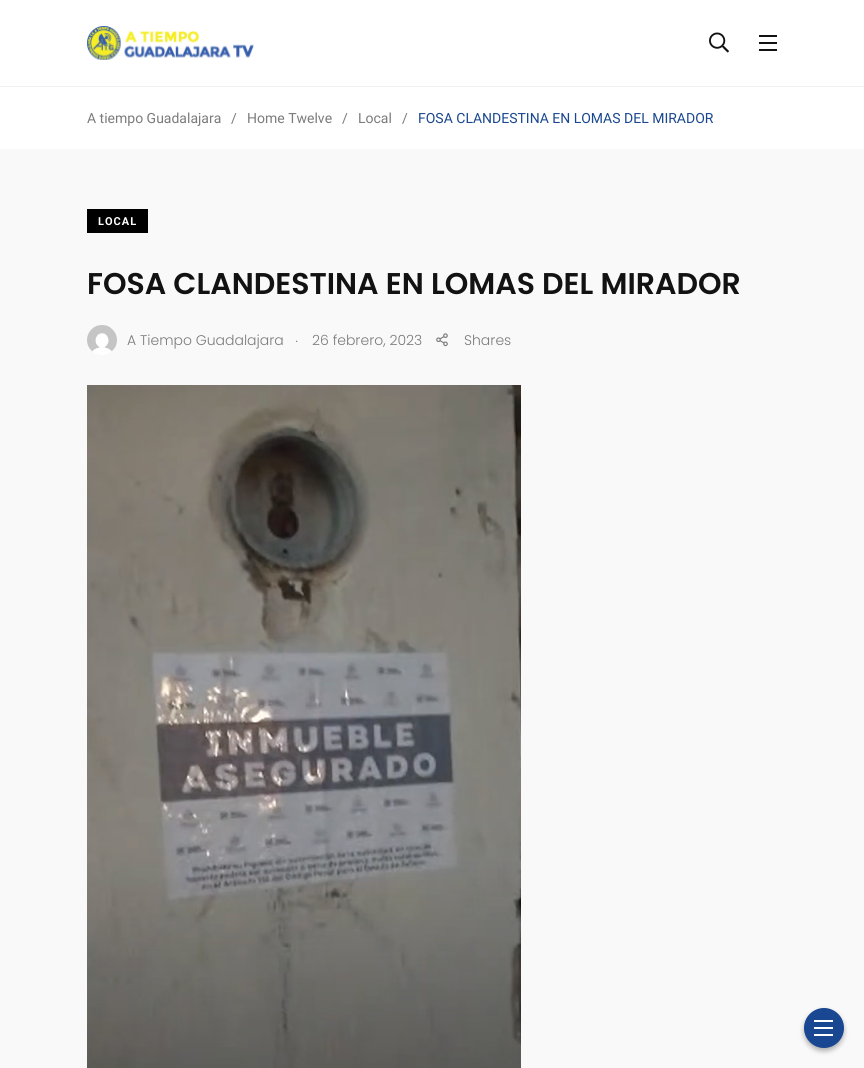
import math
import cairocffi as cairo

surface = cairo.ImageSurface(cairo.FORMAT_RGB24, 864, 1068)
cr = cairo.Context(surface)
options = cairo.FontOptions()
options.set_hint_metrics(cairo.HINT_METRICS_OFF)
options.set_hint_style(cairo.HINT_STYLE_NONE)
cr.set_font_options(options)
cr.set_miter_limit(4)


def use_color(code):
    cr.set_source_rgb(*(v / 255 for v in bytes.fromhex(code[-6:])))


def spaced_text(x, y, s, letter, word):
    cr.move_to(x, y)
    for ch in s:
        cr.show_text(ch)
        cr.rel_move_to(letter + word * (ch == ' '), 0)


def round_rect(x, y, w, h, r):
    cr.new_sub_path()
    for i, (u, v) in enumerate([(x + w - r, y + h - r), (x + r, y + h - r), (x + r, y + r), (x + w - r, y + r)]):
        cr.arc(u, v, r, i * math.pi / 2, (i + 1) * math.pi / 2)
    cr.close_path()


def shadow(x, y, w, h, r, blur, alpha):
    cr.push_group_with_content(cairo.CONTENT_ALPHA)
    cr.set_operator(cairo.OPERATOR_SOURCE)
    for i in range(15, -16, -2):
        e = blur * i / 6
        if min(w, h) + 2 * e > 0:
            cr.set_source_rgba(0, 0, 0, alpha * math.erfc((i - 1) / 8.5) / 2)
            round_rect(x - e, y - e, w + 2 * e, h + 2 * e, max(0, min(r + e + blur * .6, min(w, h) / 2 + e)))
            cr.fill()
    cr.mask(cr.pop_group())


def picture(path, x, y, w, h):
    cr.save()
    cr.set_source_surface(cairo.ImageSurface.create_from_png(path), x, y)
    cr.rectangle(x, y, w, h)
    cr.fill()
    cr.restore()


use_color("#ffffff")
cr.paint()
use_color("#f0f0f0")
cr.rectangle(0, 86, 864, 1)
cr.fill()
picture("img1.png", 87, 26, 167, 34)
picture("img2.png", 709, 32, 20, 21)
use_color("#121213")
cr.rectangle(759, 35, 18, 2)
cr.fill()
cr.rectangle(759, 42, 18, 2)
cr.fill()
cr.rectangle(759, 49, 18, 2)
cr.fill()
use_color("#f9f9f9")
cr.rectangle(0, 149, 864, 919)
cr.fill()
use_color("#000000")
shadow(804, 1011, 40, 40, 20, 2.5, 0.3)
use_color("#194791")
cr.arc(824, 1028, 20, 0, 2 * math.pi)
cr.fill()
use_color("#ffffff")
cr.rectangle(814, 1020, 19, 2)
cr.fill()
cr.rectangle(814, 1027, 19, 2)
cr.fill()
cr.rectangle(814, 1034, 19, 2)
cr.fill()
cr.select_font_face("Roboto")
cr.set_font_size(14)
use_color("#7b7b7b")
cr.move_to(87, 123)
cr.show_text("A tiempo Guadalajara")
cr.move_to(231, 123)
cr.show_text("/")
cr.move_to(247, 123)
cr.show_text("Home Twelve")
cr.move_to(342, 123)
cr.show_text("/")
cr.move_to(358, 123)
cr.show_text("Local")
cr.move_to(402, 123)
cr.show_text("/")
use_color("#194791")
cr.move_to(418, 123)
cr.show_text("FOSA CLANDESTINA EN LOMAS DEL MIRADOR")
use_color("#000000")
cr.rectangle(87, 209, 61, 24)
cr.fill()
cr.select_font_face("Roboto", cairo.FONT_SLANT_NORMAL, cairo.FONT_WEIGHT_BOLD)
cr.set_font_size(11)
use_color("#ffffff")
spaced_text(98, 225, "LOCAL", 1, 0)
cr.select_font_face("Poppins SemiBold")
cr.set_font_size(30)
use_color("#121213")
cr.move_to(87, 294)
cr.show_text("FOSA CLANDESTINA EN LOMAS DEL MIRADOR")
picture("img3.png", 87, 325, 30, 30)
cr.select_font_face("Poppins Light")
cr.set_font_size(14)
use_color("#7b7b7b")
cr.move_to(127, 345)
cr.show_text("A Tiempo Guadalajara")
cr.select_font_face("Poppins Light", cairo.FONT_SLANT_ITALIC)
cr.move_to(296, 342)
cr.show_text(".")
cr.select_font_face("Poppins Light")
cr.move_to(312, 345)
cr.show_text("26 febrero, 2023")
picture("img4.png", 436, 333, 12, 14)
cr.move_to(464, 345)
cr.show_text("Shares")
picture("img5.png", 87, 385, 434, 683)
surface.write_to_png("result.png")
